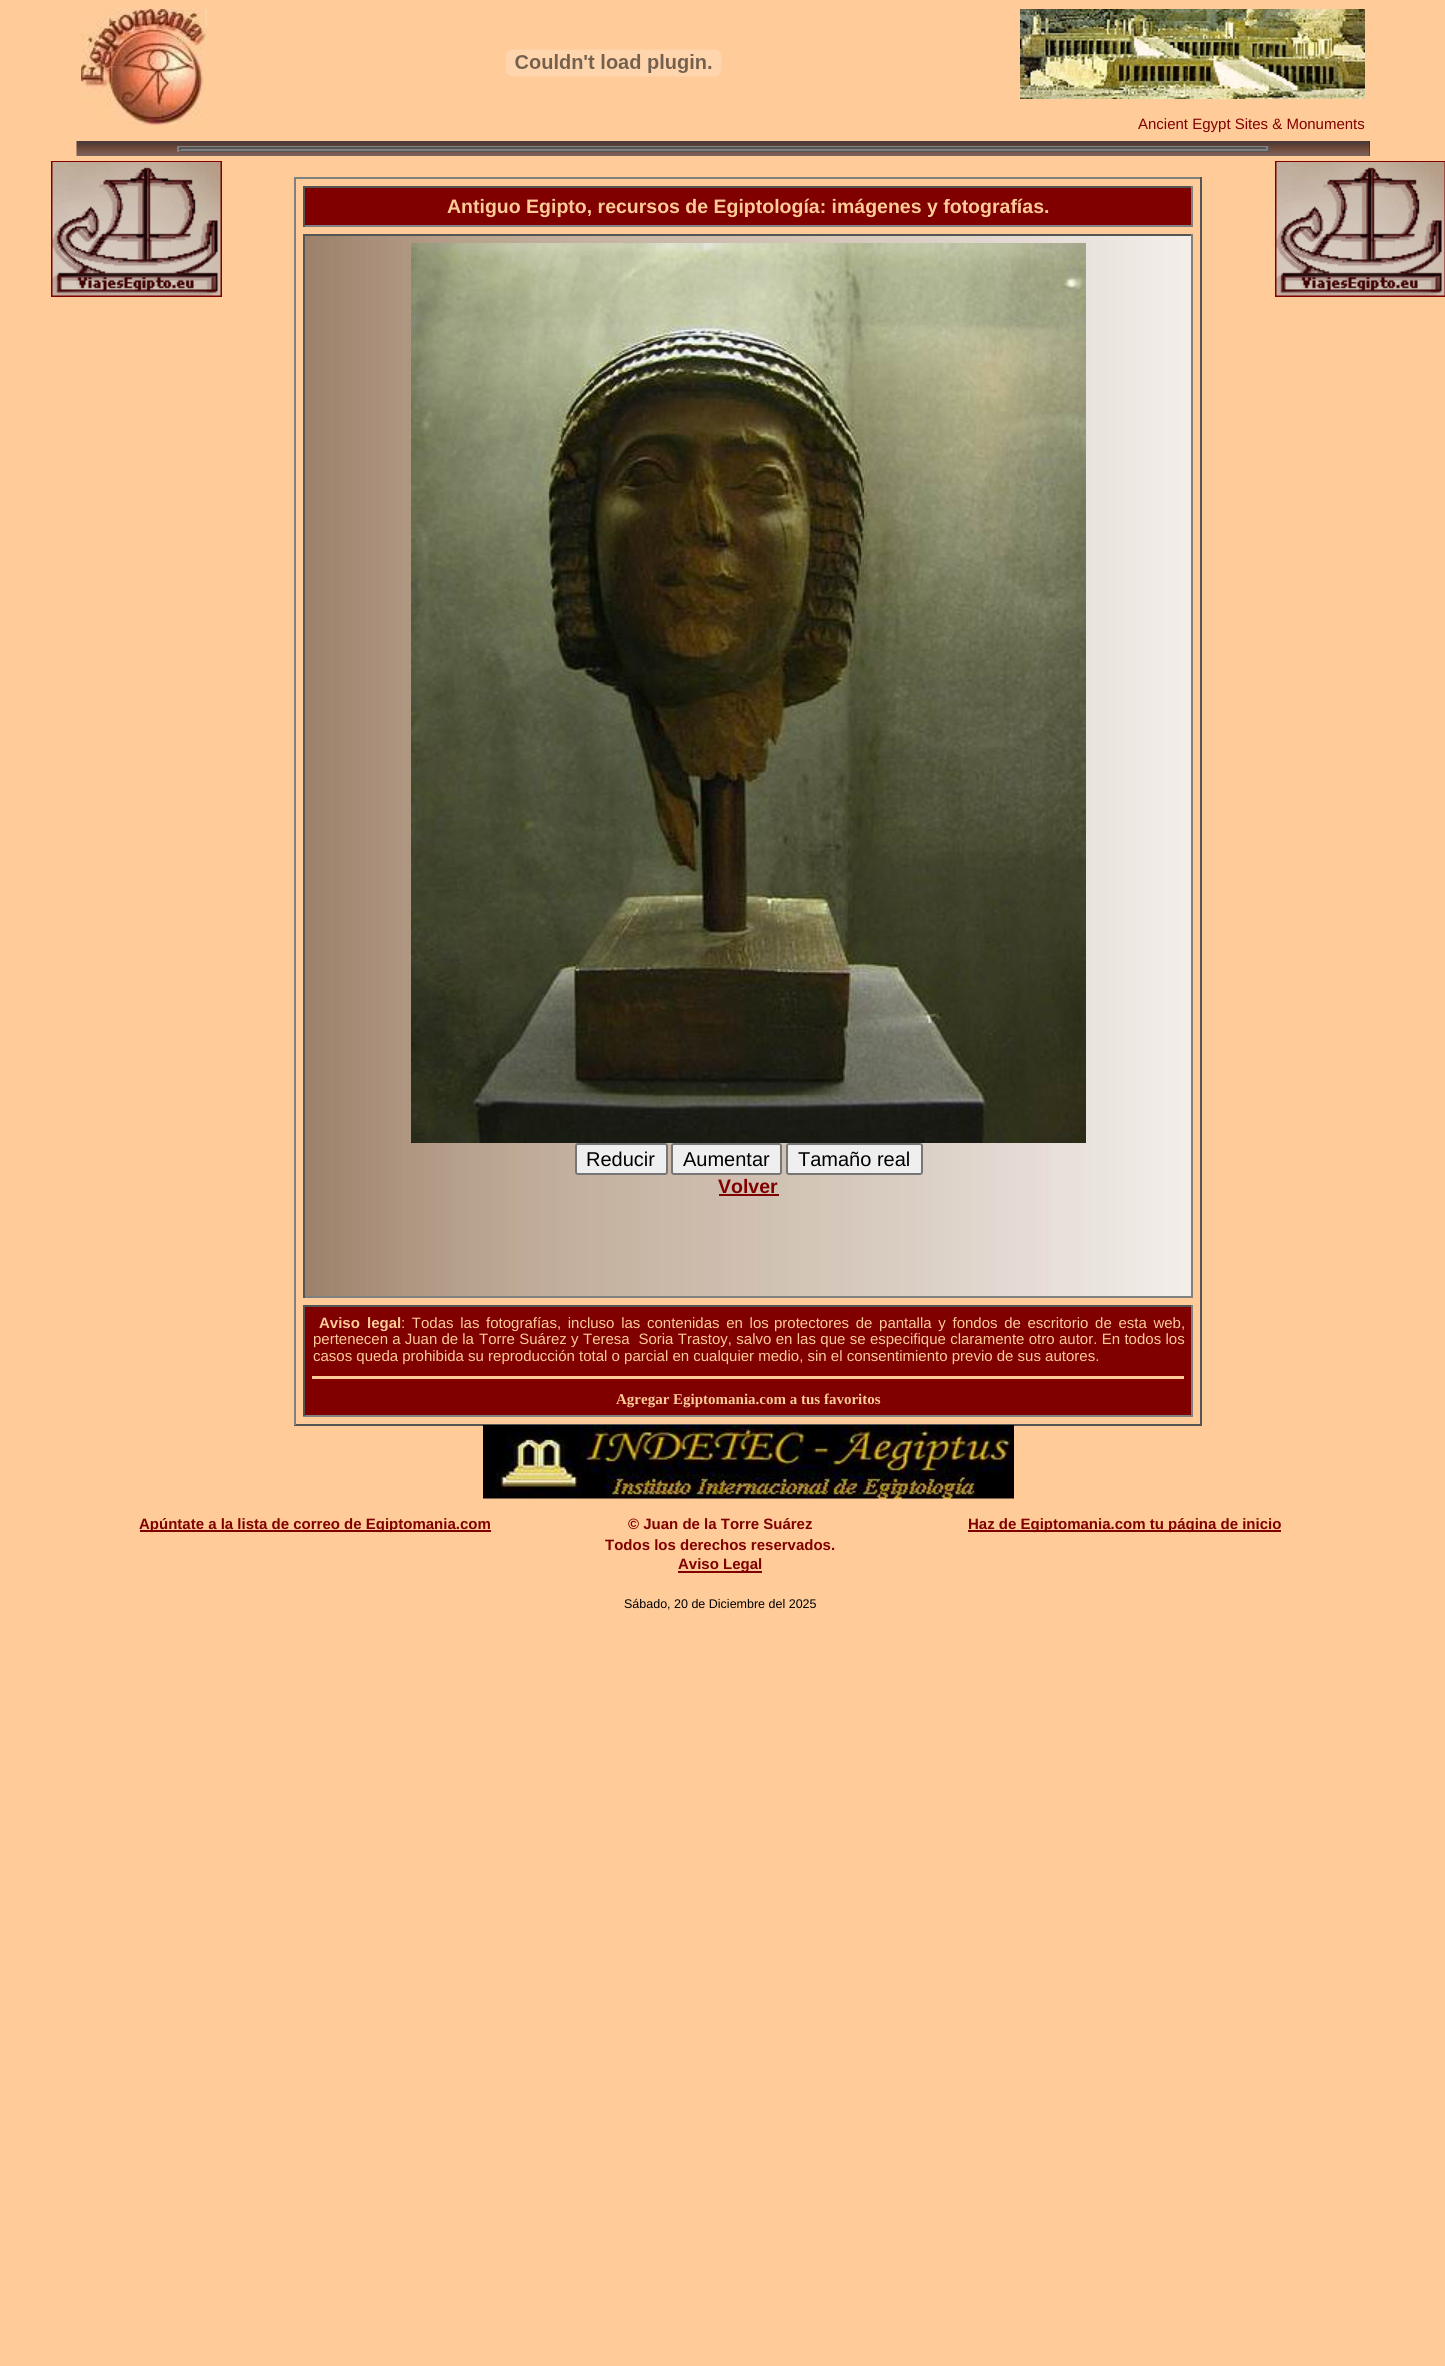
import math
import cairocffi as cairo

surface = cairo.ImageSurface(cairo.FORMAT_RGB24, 1445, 2366)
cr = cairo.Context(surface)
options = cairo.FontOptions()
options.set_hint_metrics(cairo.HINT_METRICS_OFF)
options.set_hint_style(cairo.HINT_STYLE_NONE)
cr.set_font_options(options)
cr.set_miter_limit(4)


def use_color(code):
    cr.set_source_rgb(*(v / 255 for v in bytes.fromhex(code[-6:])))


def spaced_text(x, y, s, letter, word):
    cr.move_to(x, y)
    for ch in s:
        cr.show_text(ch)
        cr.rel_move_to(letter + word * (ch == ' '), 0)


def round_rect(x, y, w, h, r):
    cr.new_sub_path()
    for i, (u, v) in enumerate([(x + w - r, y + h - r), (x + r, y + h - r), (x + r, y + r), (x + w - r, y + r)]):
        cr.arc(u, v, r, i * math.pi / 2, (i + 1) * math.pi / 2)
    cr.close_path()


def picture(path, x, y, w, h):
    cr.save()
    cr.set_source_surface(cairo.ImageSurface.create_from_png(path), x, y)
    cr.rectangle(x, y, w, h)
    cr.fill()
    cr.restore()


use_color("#ffcb99")
cr.paint()
picture("img1.png", 81, 9, 126, 116)
picture("img2.png", 1020, 9, 345, 90)
picture("img3.png", 505, 49, 217, 28)
cr.select_font_face("Liberation Sans")
cr.set_font_size(15)
use_color("#800000")
cr.move_to(1138, 129)
cr.show_text("Ancient Egypt Sites & Monuments")
cr.rectangle(1369, 141, 1, 15)
cr.fill()
picture("img4.png", 76, 141, 1294, 15)
use_color("#808080")
cr.rectangle(177, 146, 1092, 1)
cr.fill()
use_color("#555555")
cr.rectangle(1268, 146, 2, 6)
cr.fill()
cr.rectangle(177, 150, 1092, 2)
cr.fill()
use_color("#808080")
cr.rectangle(177, 146, 2, 6)
cr.fill()
use_color("#555555")
cr.rectangle(179, 147, 1089, 2)
cr.fill()
use_color("#808080")
cr.rectangle(1266, 147, 2, 3)
cr.fill()
cr.rectangle(179, 149, 1089, 2)
cr.fill()
use_color("#555555")
cr.rectangle(179, 147, 2, 3)
cr.fill()
cr.rectangle(52, 162, 169, 134)
use_color("#800000")
cr.stroke()
picture("img5.png", 52, 162, 169, 134)
cr.rectangle(1276, 162, 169, 134)
cr.stroke()
picture("img6.png", 1276, 162, 169, 134)
use_color("#808080")
cr.rectangle(294, 177, 908, 2)
cr.fill()
use_color("#555555")
cr.rectangle(1200, 177, 2, 1248)
cr.fill()
cr.rectangle(294, 1424, 908, 2)
cr.fill()
use_color("#808080")
cr.rectangle(294, 177, 2, 1248)
cr.fill()
use_color("#800000")
cr.rectangle(305, 188, 886, 37)
cr.fill()
use_color("#555555")
cr.rectangle(303, 186, 890, 2)
cr.fill()
use_color("#808080")
cr.rectangle(1191, 186, 2, 41)
cr.fill()
cr.rectangle(303, 225, 890, 2)
cr.fill()
use_color("#555555")
cr.rectangle(303, 186, 2, 41)
cr.fill()
cr.select_font_face("Liberation Sans", cairo.FONT_SLANT_NORMAL, cairo.FONT_WEIGHT_BOLD)
cr.set_font_size(19.5)
use_color("#fecb98")
cr.move_to(447, 213)
cr.show_text("Antiguo Egipto, recursos de Egiptología: imágenes y fotografías.")
picture("img7.png", 305, 236, 886, 1060)
use_color("#555555")
cr.rectangle(303, 234, 890, 2)
cr.fill()
use_color("#808080")
cr.rectangle(1191, 234, 2, 1064)
cr.fill()
cr.rectangle(303, 1296, 890, 2)
cr.fill()
use_color("#555555")
cr.rectangle(303, 234, 2, 1064)
cr.fill()
picture("img8.png", 411, 243, 675, 900)
use_color("#efefef")
round_rect(576, 1144, 91, 30, 2)
cr.fill_preserve()
use_color("#767676")
cr.stroke()
cr.select_font_face("Liberation Sans")
cr.set_font_size(20)
use_color("#000000")
cr.move_to(586, 1166)
cr.show_text("Reducir")
use_color("#efefef")
round_rect(672, 1144, 109, 30, 2)
cr.fill_preserve()
use_color("#767676")
cr.stroke()
use_color("#000000")
cr.move_to(683, 1166)
cr.show_text("Aumentar")
use_color("#efefef")
round_rect(787, 1144, 135, 30, 2)
cr.fill_preserve()
use_color("#767676")
cr.stroke()
use_color("#000000")
cr.move_to(798, 1166)
cr.show_text("Tamaño real")
cr.select_font_face("Liberation Sans", cairo.FONT_SLANT_NORMAL, cairo.FONT_WEIGHT_BOLD)
cr.set_font_size(19.5)
use_color("#800000")
cr.move_to(718, 1193)
cr.show_text("Volver")
cr.rectangle(719, 1194, 60, 2)
cr.fill()
cr.rectangle(305, 1307, 886, 108)
cr.fill()
use_color("#555555")
cr.rectangle(303, 1305, 890, 2)
cr.fill()
use_color("#808080")
cr.rectangle(1191, 1305, 2, 111)
cr.fill()
cr.rectangle(303, 1415, 890, 2)
cr.fill()
use_color("#555555")
cr.rectangle(303, 1305, 2, 111)
cr.fill()
cr.set_font_size(15)
use_color("#fecb98")
cr.move_to(319, 1328)
cr.show_text("Aviso")
cr.move_to(367, 1328)
cr.show_text("legal")
cr.select_font_face("Liberation Sans")
spaced_text(401, 1328, ": Todas las fotografías, incluso las contenidas en los", 0, 2.5)
spaced_text(774, 1328, "protectores de pantalla y fondos de escritorio de esta web,", 0, 2.5)
cr.move_to(313, 1344)
cr.show_text("pertenecen a Juan de la")
spaced_text(479, 1344, "Torre Suárez y Teresa  Soria Trastoy, salvo en las que se especifique claramente otro autor. En todos los", 0, 0.2)
cr.move_to(313, 1361)
cr.show_text("casos queda prohibida su reproducción total o parcial en cualquier medio, sin el consentimiento previo de sus autores.")
cr.rectangle(312, 1376, 872, 3)
cr.fill()
cr.select_font_face("Liberation Serif", cairo.FONT_SLANT_NORMAL, cairo.FONT_WEIGHT_BOLD)
cr.move_to(616, 1404)
cr.show_text("Agregar Egiptomania.com a tus favoritos")
picture("img9.png", 483, 1425, 531, 74)
use_color("#800000")
cr.rectangle(140, 1530, 351, 2)
cr.fill()
cr.select_font_face("Liberation Sans", cairo.FONT_SLANT_NORMAL, cairo.FONT_WEIGHT_BOLD)
cr.move_to(139, 1529)
cr.show_text("Apúntate a la lista de correo de Egiptomania.com")
cr.move_to(628, 1529)
cr.show_text("© Juan de la Torre Suárez")
cr.move_to(605, 1550)
cr.show_text("Todos los derechos reservados.")
cr.rectangle(678, 1571, 84, 2)
cr.fill()
cr.move_to(678, 1569)
cr.show_text("Aviso Legal")
cr.select_font_face("Liberation Sans")
cr.set_font_size(12.5)
use_color("#000000")
cr.move_to(624, 1608)
cr.show_text("Sábado, 20 de Diciembre del 2025")
use_color("#800000")
cr.rectangle(968, 1530, 313, 2)
cr.fill()
cr.select_font_face("Liberation Sans", cairo.FONT_SLANT_NORMAL, cairo.FONT_WEIGHT_BOLD)
cr.set_font_size(15)
cr.move_to(968, 1529)
cr.show_text("Haz de Egiptomania.com tu página de inicio")
surface.write_to_png("result.png")
